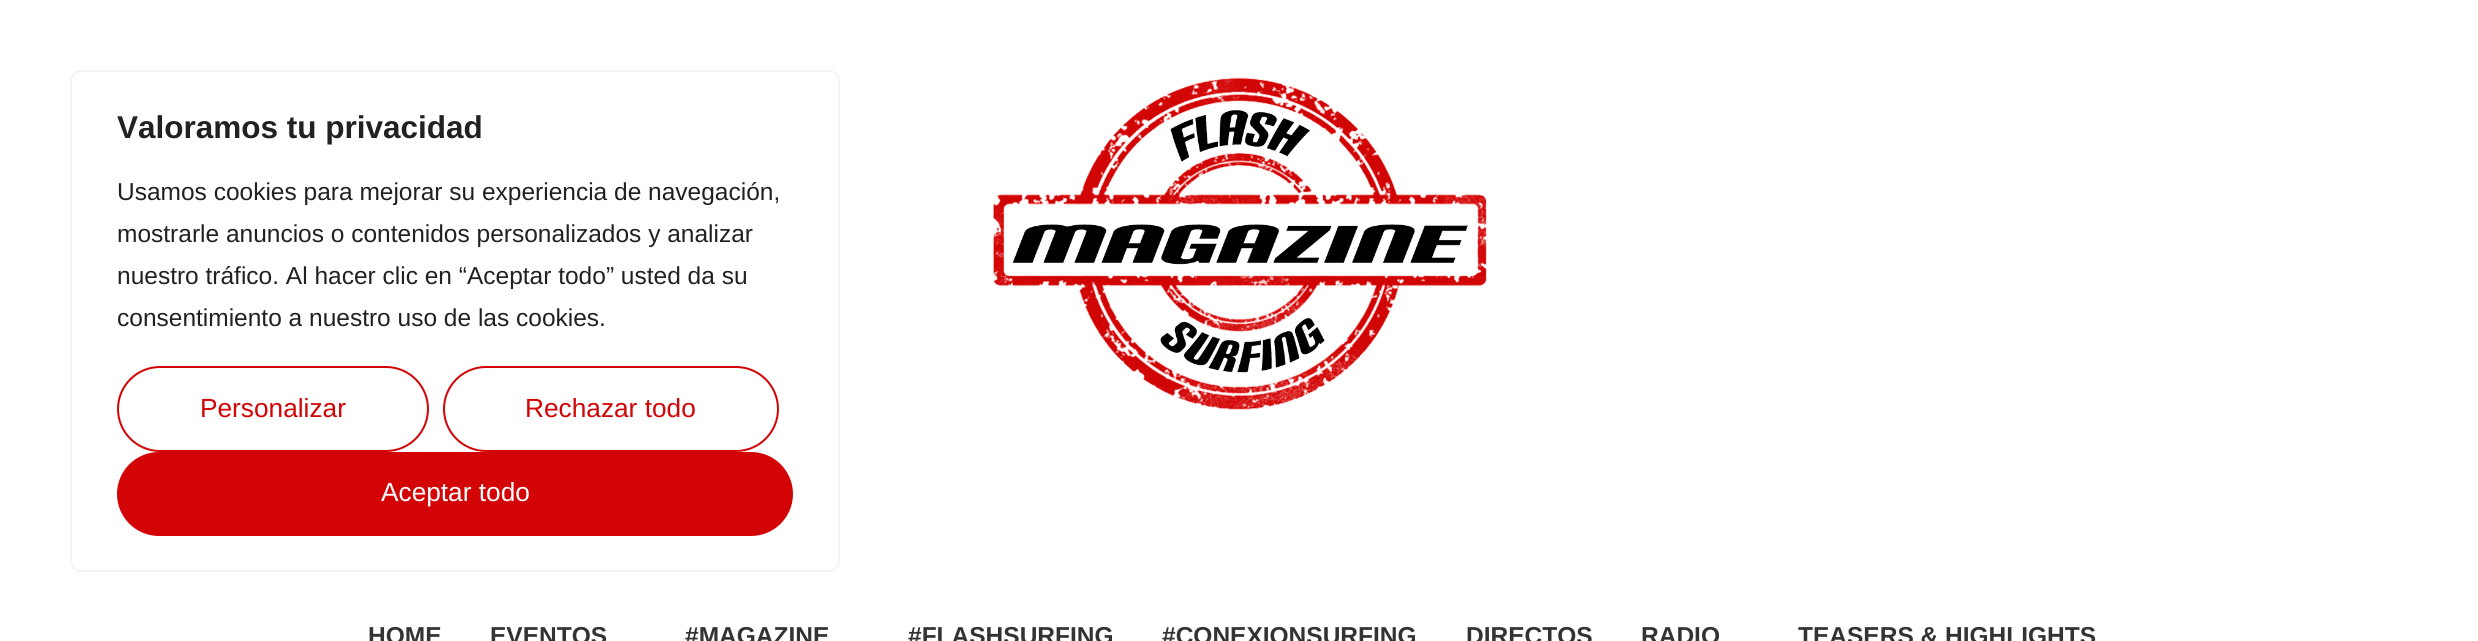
import math
import cairocffi as cairo

surface = cairo.ImageSurface(cairo.FORMAT_RGB24, 2478, 641)
cr = cairo.Context(surface)
options = cairo.FontOptions()
options.set_hint_metrics(cairo.HINT_METRICS_OFF)
options.set_hint_style(cairo.HINT_STYLE_NONE)
cr.set_font_options(options)
cr.set_miter_limit(4)


def use_color(code):
    cr.set_source_rgb(*(v / 255 for v in bytes.fromhex(code[-6:])))


def round_rect(x, y, w, h, r):
    cr.new_sub_path()
    for i, (u, v) in enumerate([(x + w - r, y + h - r), (x + r, y + h - r), (x + r, y + r), (x + w - r, y + r)]):
        cr.arc(u, v, r, i * math.pi / 2, (i + 1) * math.pi / 2)
    cr.close_path()


def picture(path, x, y, w, h):
    cr.save()
    cr.set_source_surface(cairo.ImageSurface.create_from_png(path), x, y)
    cr.rectangle(x, y, w, h)
    cr.fill()
    cr.restore()


use_color("#ffffff")
cr.paint()
round_rect(71, 71, 768, 500, 10)
use_color("#f4f4f4")
cr.stroke()
cr.select_font_face("Liberation Sans", cairo.FONT_SLANT_NORMAL, cairo.FONT_WEIGHT_BOLD)
cr.set_font_size(31.5)
use_color("#212121")
cr.move_to(117, 138)
cr.show_text("Valoramos tu privacidad")
cr.select_font_face("Liberation Sans")
cr.set_font_size(24.5)
cr.move_to(117, 200)
cr.show_text("Usamos cookies para mejorar su experiencia de navegación,")
cr.move_to(117, 242)
cr.show_text("mostrarle anuncios o contenidos personalizados y analizar")
cr.move_to(117, 284)
cr.show_text("nuestro tráfico. Al hacer clic en “Aceptar todo” usted da su")
cr.move_to(117, 326)
cr.show_text("consentimiento a nuestro uso de las cookies.")
round_rect(118, 367, 310, 84, 42)
use_color("#d20405")
cr.stroke()
cr.set_font_size(26.25)
cr.move_to(200, 417)
cr.show_text("Personalizar")
round_rect(444, 367, 334, 84, 42)
cr.stroke()
cr.move_to(525, 417)
cr.show_text("Rechazar todo")
round_rect(118, 453, 674, 82, 41)
cr.fill_preserve()
cr.stroke()
use_color("#ffffff")
cr.move_to(381, 501)
cr.show_text("Aceptar todo")
picture("img1.png", 992, 77, 495, 333)
cr.select_font_face("Liberation Sans", cairo.FONT_SLANT_NORMAL, cairo.FONT_WEIGHT_BOLD)
cr.set_font_size(24.5)
use_color("#333333")
cr.move_to(368, 644)
cr.show_text("HOME")
cr.move_to(490, 644)
cr.show_text("EVENTOS")
cr.move_to(685, 644)
cr.show_text("#MAGAZINE")
cr.move_to(908, 644)
cr.show_text("#FLASHSURFING")
cr.move_to(1162, 644)
cr.show_text("#CONEXIONSURFING")
cr.move_to(1466, 644)
cr.show_text("DIRECTOS")
cr.move_to(1641, 644)
cr.show_text("RADIO")
cr.move_to(1798, 644)
cr.show_text("TEASERS & HIGHLIGHTS")
surface.write_to_png("result.png")
